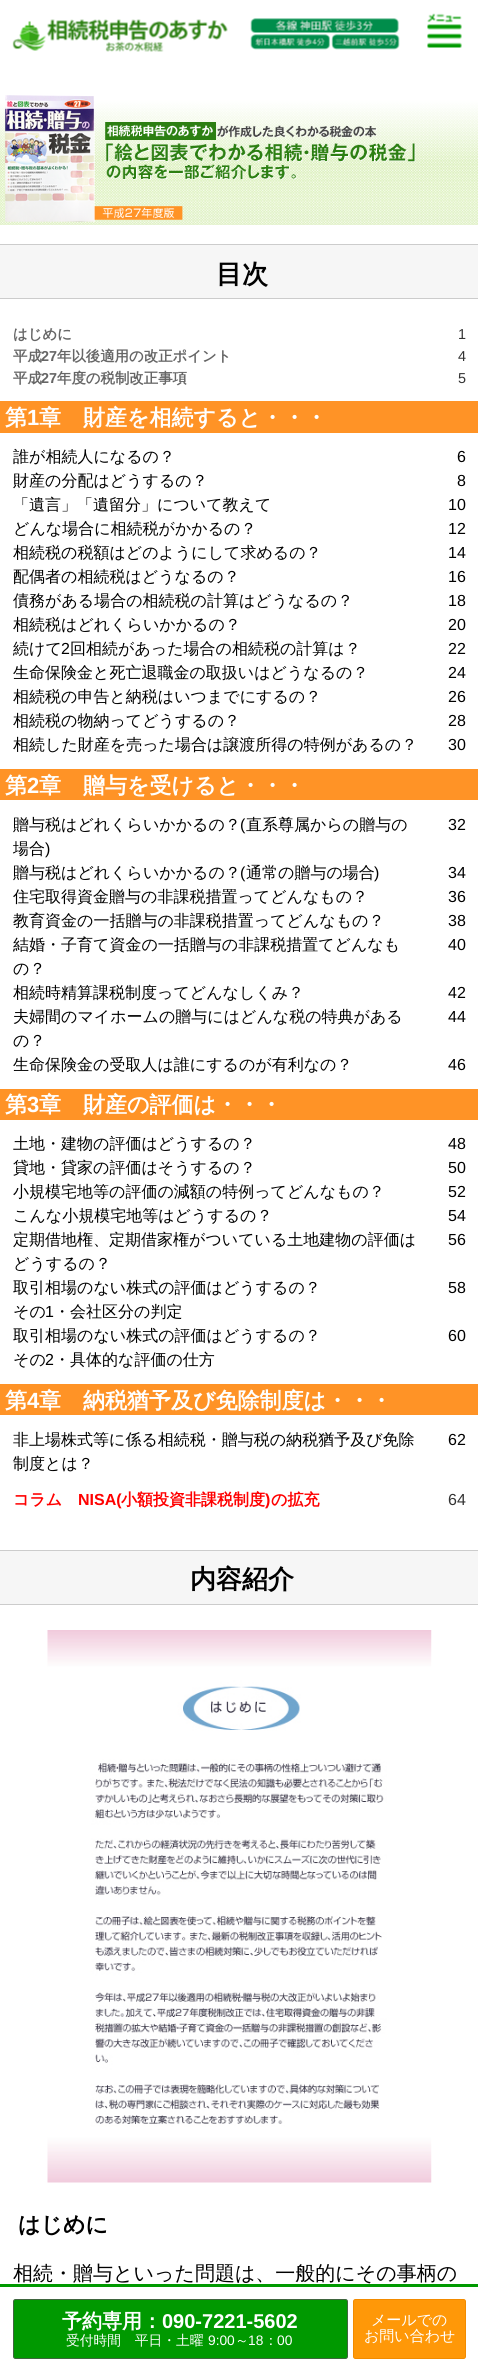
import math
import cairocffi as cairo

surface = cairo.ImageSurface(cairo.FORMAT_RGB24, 478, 2371)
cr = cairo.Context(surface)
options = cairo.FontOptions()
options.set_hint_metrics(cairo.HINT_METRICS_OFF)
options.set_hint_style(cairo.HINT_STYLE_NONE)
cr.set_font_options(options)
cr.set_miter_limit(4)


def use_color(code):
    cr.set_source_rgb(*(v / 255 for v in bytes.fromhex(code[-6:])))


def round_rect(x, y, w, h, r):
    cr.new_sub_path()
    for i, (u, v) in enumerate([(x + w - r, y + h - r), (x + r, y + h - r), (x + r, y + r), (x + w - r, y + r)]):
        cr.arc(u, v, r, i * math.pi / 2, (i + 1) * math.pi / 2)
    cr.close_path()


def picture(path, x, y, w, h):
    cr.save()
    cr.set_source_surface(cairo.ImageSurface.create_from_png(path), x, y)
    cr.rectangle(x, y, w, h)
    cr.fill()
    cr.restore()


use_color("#ffffff")
cr.paint()
picture("img1.png", 12, 19, 216, 33)
picture("img2.png", 250, 18, 150, 32)
picture("img3.png", 427, 13, 35, 35)
picture("img4.png", 0, 95, 478, 130)
use_color("#f6f6f6")
cr.rectangle(0, 245, 478, 53)
cr.fill()
use_color("#cccccc")
cr.rectangle(0, 244, 478, 1)
cr.fill()
cr.rectangle(0, 298, 478, 1)
cr.fill()
cr.select_font_face("WenQuanYi Zen Hei", cairo.FONT_SLANT_NORMAL, cairo.FONT_WEIGHT_BOLD)
cr.set_font_size(26)
use_color("#000000")
cr.move_to(216, 283)
cr.show_text("目次")
cr.set_font_size(14.4)
use_color("#666666")
cr.move_to(13, 339)
cr.show_text("はじめに")
cr.select_font_face("Liberation Sans")
use_color("#333333")
cr.move_to(458, 339)
cr.show_text("1")
cr.select_font_face("WenQuanYi Zen Hei", cairo.FONT_SLANT_NORMAL, cairo.FONT_WEIGHT_BOLD)
use_color("#666666")
cr.move_to(13, 361)
cr.show_text("平成")
cr.select_font_face("Liberation Sans", cairo.FONT_SLANT_NORMAL, cairo.FONT_WEIGHT_BOLD)
cr.move_to(41, 361)
cr.show_text("27")
cr.select_font_face("WenQuanYi Zen Hei", cairo.FONT_SLANT_NORMAL, cairo.FONT_WEIGHT_BOLD)
cr.move_to(57, 361)
cr.show_text("年以後適用の改正ポイント")
cr.select_font_face("Liberation Sans")
use_color("#333333")
cr.move_to(458, 361)
cr.show_text("4")
cr.select_font_face("WenQuanYi Zen Hei", cairo.FONT_SLANT_NORMAL, cairo.FONT_WEIGHT_BOLD)
use_color("#666666")
cr.move_to(13, 383)
cr.show_text("平成")
cr.select_font_face("Liberation Sans", cairo.FONT_SLANT_NORMAL, cairo.FONT_WEIGHT_BOLD)
cr.move_to(41, 383)
cr.show_text("27")
cr.select_font_face("WenQuanYi Zen Hei", cairo.FONT_SLANT_NORMAL, cairo.FONT_WEIGHT_BOLD)
cr.move_to(57, 383)
cr.show_text("年度の税制改正事項")
cr.select_font_face("Liberation Sans")
use_color("#333333")
cr.move_to(458, 383)
cr.show_text("5")
use_color("#ff9326")
cr.rectangle(0, 401, 478, 32)
cr.fill()
cr.select_font_face("WenQuanYi Zen Hei", cairo.FONT_SLANT_NORMAL, cairo.FONT_WEIGHT_BOLD)
cr.set_font_size(22)
use_color("#ffffff")
cr.move_to(5, 425)
cr.show_text("第")
cr.select_font_face("Liberation Sans", cairo.FONT_SLANT_NORMAL, cairo.FONT_WEIGHT_BOLD)
cr.move_to(27, 425)
cr.show_text("1")
cr.select_font_face("WenQuanYi Zen Hei", cairo.FONT_SLANT_NORMAL, cairo.FONT_WEIGHT_BOLD)
cr.move_to(39, 425)
cr.show_text("章　財産を相続すると・・・")
cr.select_font_face("WenQuanYi Zen Hei Medium")
cr.set_font_size(16)
use_color("#000000")
cr.move_to(13, 462)
cr.show_text("誰が相続人になるの？")
cr.select_font_face("Liberation Sans")
cr.move_to(457, 462)
cr.show_text("6")
cr.select_font_face("WenQuanYi Zen Hei Medium")
cr.move_to(13, 486)
cr.show_text("財産の分配はどうするの？")
cr.select_font_face("Liberation Sans")
cr.move_to(457, 486)
cr.show_text("8")
cr.select_font_face("WenQuanYi Zen Hei Medium")
cr.move_to(13, 510)
cr.show_text("「遺言」「遺留分」について教えて")
cr.select_font_face("Liberation Sans")
cr.move_to(448, 510)
cr.show_text("10")
cr.select_font_face("WenQuanYi Zen Hei Medium")
cr.move_to(13, 534)
cr.show_text("どんな場合に相続税がかかるの？")
cr.select_font_face("Liberation Sans")
cr.move_to(448, 534)
cr.show_text("12")
cr.select_font_face("WenQuanYi Zen Hei Medium")
cr.move_to(13, 558)
cr.show_text("相続税の税額はどのようにして求めるの？")
cr.select_font_face("Liberation Sans")
cr.move_to(448, 558)
cr.show_text("14")
cr.select_font_face("WenQuanYi Zen Hei Medium")
cr.move_to(13, 582)
cr.show_text("配偶者の相続税はどうなるの？")
cr.select_font_face("Liberation Sans")
cr.move_to(448, 582)
cr.show_text("16")
cr.select_font_face("WenQuanYi Zen Hei Medium")
cr.move_to(13, 606)
cr.show_text("債務がある場合の相続税の計算はどうなるの？")
cr.select_font_face("Liberation Sans")
cr.move_to(448, 606)
cr.show_text("18")
cr.select_font_face("WenQuanYi Zen Hei Medium")
cr.move_to(13, 630)
cr.show_text("相続税はどれくらいかかるの？")
cr.select_font_face("Liberation Sans")
cr.move_to(448, 630)
cr.show_text("20")
cr.select_font_face("WenQuanYi Zen Hei Medium")
cr.move_to(13, 654)
cr.show_text("続けて")
cr.select_font_face("Liberation Sans")
cr.move_to(61, 654)
cr.show_text("2")
cr.select_font_face("WenQuanYi Zen Hei Medium")
cr.move_to(70, 654)
cr.show_text("回相続があった場合の相続税の計算は？")
cr.select_font_face("Liberation Sans")
cr.move_to(448, 654)
cr.show_text("22")
cr.select_font_face("WenQuanYi Zen Hei Medium")
cr.move_to(13, 678)
cr.show_text("生命保険金と死亡退職金の取扱いはどうなるの？")
cr.select_font_face("Liberation Sans")
cr.move_to(448, 678)
cr.show_text("24")
cr.select_font_face("WenQuanYi Zen Hei Medium")
cr.move_to(13, 702)
cr.show_text("相続税の申告と納税はいつまでにするの？")
cr.select_font_face("Liberation Sans")
cr.move_to(448, 702)
cr.show_text("26")
cr.select_font_face("WenQuanYi Zen Hei Medium")
cr.move_to(13, 726)
cr.show_text("相続税の物納ってどうするの？")
cr.select_font_face("Liberation Sans")
cr.move_to(448, 726)
cr.show_text("28")
cr.select_font_face("WenQuanYi Zen Hei Medium")
cr.move_to(13, 750)
cr.show_text("相続した財産を売った場合は譲渡所得の特例があるの？")
cr.select_font_face("Liberation Sans")
cr.move_to(448, 750)
cr.show_text("30")
use_color("#ff9326")
cr.rectangle(0, 769, 478, 31)
cr.fill()
cr.select_font_face("WenQuanYi Zen Hei", cairo.FONT_SLANT_NORMAL, cairo.FONT_WEIGHT_BOLD)
cr.set_font_size(22)
use_color("#ffffff")
cr.move_to(5, 793)
cr.show_text("第")
cr.select_font_face("Liberation Sans", cairo.FONT_SLANT_NORMAL, cairo.FONT_WEIGHT_BOLD)
cr.move_to(27, 793)
cr.show_text("2")
cr.select_font_face("WenQuanYi Zen Hei", cairo.FONT_SLANT_NORMAL, cairo.FONT_WEIGHT_BOLD)
cr.move_to(39, 793)
cr.show_text("章　贈与を受けると・・・")
cr.select_font_face("WenQuanYi Zen Hei Medium")
cr.set_font_size(16)
use_color("#000000")
cr.move_to(13, 830)
cr.show_text("贈与税はどれくらいかかるの？")
cr.select_font_face("Liberation Sans")
cr.move_to(240, 830)
cr.show_text("(")
cr.select_font_face("WenQuanYi Zen Hei Medium")
cr.move_to(246, 830)
cr.show_text("直系尊属からの贈与の")
cr.move_to(13, 854)
cr.show_text("場合")
cr.select_font_face("Liberation Sans")
cr.move_to(45, 854)
cr.show_text(")")
cr.move_to(448, 830)
cr.show_text("32")
cr.select_font_face("WenQuanYi Zen Hei Medium")
cr.move_to(13, 878)
cr.show_text("贈与税はどれくらいかかるの？")
cr.select_font_face("Liberation Sans")
cr.move_to(240, 878)
cr.show_text("(")
cr.select_font_face("WenQuanYi Zen Hei Medium")
cr.move_to(246, 878)
cr.show_text("通常の贈与の場合")
cr.select_font_face("Liberation Sans")
cr.move_to(374, 878)
cr.show_text(")")
cr.move_to(448, 878)
cr.show_text("34")
cr.select_font_face("WenQuanYi Zen Hei Medium")
cr.move_to(13, 902)
cr.show_text("住宅取得資金贈与の非課税措置ってどんなもの？")
cr.select_font_face("Liberation Sans")
cr.move_to(448, 902)
cr.show_text("36")
cr.select_font_face("WenQuanYi Zen Hei Medium")
cr.move_to(13, 926)
cr.show_text("教育資金の一括贈与の非課税措置ってどんなもの？")
cr.select_font_face("Liberation Sans")
cr.move_to(448, 926)
cr.show_text("38")
cr.select_font_face("WenQuanYi Zen Hei Medium")
cr.move_to(13, 950)
cr.show_text("結婚・子育て資金の一括贈与の非課税措置てどんなも")
cr.move_to(13, 974)
cr.show_text("の？")
cr.select_font_face("Liberation Sans")
cr.move_to(448, 950)
cr.show_text("40")
cr.select_font_face("WenQuanYi Zen Hei Medium")
cr.move_to(13, 998)
cr.show_text("相続時精算課税制度ってどんなしくみ？")
cr.select_font_face("Liberation Sans")
cr.move_to(448, 998)
cr.show_text("42")
cr.select_font_face("WenQuanYi Zen Hei Medium")
cr.move_to(13, 1022)
cr.show_text("夫婦間のマイホームの贈与にはどんな税の特典がある")
cr.move_to(13, 1046)
cr.show_text("の？")
cr.select_font_face("Liberation Sans")
cr.move_to(448, 1022)
cr.show_text("44")
cr.select_font_face("WenQuanYi Zen Hei Medium")
cr.move_to(13, 1070)
cr.show_text("生命保険金の受取人は誰にするのが有利なの？")
cr.select_font_face("Liberation Sans")
cr.move_to(448, 1070)
cr.show_text("46")
use_color("#ff9326")
cr.rectangle(0, 1089, 478, 31)
cr.fill()
cr.select_font_face("WenQuanYi Zen Hei", cairo.FONT_SLANT_NORMAL, cairo.FONT_WEIGHT_BOLD)
cr.set_font_size(22)
use_color("#ffffff")
cr.move_to(5, 1112)
cr.show_text("第")
cr.select_font_face("Liberation Sans", cairo.FONT_SLANT_NORMAL, cairo.FONT_WEIGHT_BOLD)
cr.move_to(27, 1112)
cr.show_text("3")
cr.select_font_face("WenQuanYi Zen Hei", cairo.FONT_SLANT_NORMAL, cairo.FONT_WEIGHT_BOLD)
cr.move_to(39, 1112)
cr.show_text("章　財産の評価は・・・")
cr.select_font_face("WenQuanYi Zen Hei Medium")
cr.set_font_size(16)
use_color("#000000")
cr.move_to(13, 1149)
cr.show_text("土地・建物の評価はどうするの？")
cr.select_font_face("Liberation Sans")
cr.move_to(448, 1149)
cr.show_text("48")
cr.select_font_face("WenQuanYi Zen Hei Medium")
cr.move_to(13, 1173)
cr.show_text("貸地・貸家の評価はそうするの？")
cr.select_font_face("Liberation Sans")
cr.move_to(448, 1173)
cr.show_text("50")
cr.select_font_face("WenQuanYi Zen Hei Medium")
cr.move_to(13, 1197)
cr.show_text("小規模宅地等の評価の減額の特例ってどんなもの？")
cr.select_font_face("Liberation Sans")
cr.move_to(448, 1197)
cr.show_text("52")
cr.select_font_face("WenQuanYi Zen Hei Medium")
cr.move_to(13, 1221)
cr.show_text("こんな小規模宅地等はどうするの？")
cr.select_font_face("Liberation Sans")
cr.move_to(448, 1221)
cr.show_text("54")
cr.select_font_face("WenQuanYi Zen Hei Medium")
cr.move_to(13, 1245)
cr.show_text("定期借地権、定期借家権がついている土地建物の評価は")
cr.move_to(13, 1269)
cr.show_text("どうするの？")
cr.select_font_face("Liberation Sans")
cr.move_to(448, 1245)
cr.show_text("56")
cr.select_font_face("WenQuanYi Zen Hei Medium")
cr.move_to(13, 1293)
cr.show_text("取引相場のない株式の評価はどうするの？")
cr.select_font_face("Liberation Sans")
cr.move_to(448, 1293)
cr.show_text("58")
cr.select_font_face("WenQuanYi Zen Hei Medium")
cr.move_to(13, 1317)
cr.show_text("その")
cr.select_font_face("Liberation Sans")
cr.move_to(45, 1317)
cr.show_text("1")
cr.select_font_face("WenQuanYi Zen Hei Medium")
cr.move_to(54, 1317)
cr.show_text("・会社区分の判定")
cr.move_to(13, 1341)
cr.show_text("取引相場のない株式の評価はどうするの？")
cr.select_font_face("Liberation Sans")
cr.move_to(448, 1341)
cr.show_text("60")
cr.select_font_face("WenQuanYi Zen Hei Medium")
cr.move_to(13, 1365)
cr.show_text("その")
cr.select_font_face("Liberation Sans")
cr.move_to(45, 1365)
cr.show_text("2")
cr.select_font_face("WenQuanYi Zen Hei Medium")
cr.move_to(54, 1365)
cr.show_text("・具体的な評価の仕方")
use_color("#ff9326")
cr.rectangle(0, 1384, 478, 31)
cr.fill()
cr.select_font_face("WenQuanYi Zen Hei", cairo.FONT_SLANT_NORMAL, cairo.FONT_WEIGHT_BOLD)
cr.set_font_size(22)
use_color("#ffffff")
cr.move_to(5, 1408)
cr.show_text("第")
cr.select_font_face("Liberation Sans", cairo.FONT_SLANT_NORMAL, cairo.FONT_WEIGHT_BOLD)
cr.move_to(27, 1408)
cr.show_text("4")
cr.select_font_face("WenQuanYi Zen Hei", cairo.FONT_SLANT_NORMAL, cairo.FONT_WEIGHT_BOLD)
cr.move_to(39, 1408)
cr.show_text("章　納税猶予及び免除制度は・・・")
cr.select_font_face("WenQuanYi Zen Hei Medium")
cr.set_font_size(16)
use_color("#000000")
cr.move_to(13, 1445)
cr.show_text("非上場株式等に係る相続税・贈与税の納税猶予及び免除")
cr.move_to(13, 1469)
cr.show_text("制度とは？")
cr.select_font_face("Liberation Sans")
cr.move_to(448, 1445)
cr.show_text("62")
cr.select_font_face("WenQuanYi Zen Hei", cairo.FONT_SLANT_NORMAL, cairo.FONT_WEIGHT_BOLD)
use_color("#ff0000")
cr.move_to(13, 1505)
cr.show_text("コラム")
cr.select_font_face("Liberation Sans", cairo.FONT_SLANT_NORMAL, cairo.FONT_WEIGHT_BOLD)
cr.move_to(78, 1505)
cr.show_text("NISA(")
cr.select_font_face("WenQuanYi Zen Hei", cairo.FONT_SLANT_NORMAL, cairo.FONT_WEIGHT_BOLD)
cr.move_to(121, 1505)
cr.show_text("小額投資非課税制度")
cr.select_font_face("Liberation Sans", cairo.FONT_SLANT_NORMAL, cairo.FONT_WEIGHT_BOLD)
cr.move_to(265, 1505)
cr.show_text(")")
cr.select_font_face("WenQuanYi Zen Hei", cairo.FONT_SLANT_NORMAL, cairo.FONT_WEIGHT_BOLD)
cr.move_to(271, 1505)
cr.show_text("の拡充")
cr.select_font_face("Liberation Sans")
use_color("#333333")
cr.move_to(448, 1505)
cr.show_text("64")
use_color("#f6f6f6")
cr.rectangle(0, 1551, 478, 53)
cr.fill()
use_color("#cccccc")
cr.rectangle(0, 1550, 478, 1)
cr.fill()
cr.rectangle(0, 1604, 478, 1)
cr.fill()
cr.select_font_face("WenQuanYi Zen Hei", cairo.FONT_SLANT_NORMAL, cairo.FONT_WEIGHT_BOLD)
cr.set_font_size(26)
use_color("#000000")
cr.move_to(190, 1588)
cr.show_text("内容紹介")
picture("img5.png", 47, 1630, 385, 553)
cr.set_font_size(22)
cr.move_to(18, 2232)
cr.show_text("はじめに")
cr.select_font_face("WenQuanYi Zen Hei Medium")
cr.set_font_size(20)
cr.move_to(13, 2280)
cr.show_text("相続・贈与といった問題は、一般的にその事柄の")
use_color("#009900")
cr.rectangle(0, 2284, 478, 3)
cr.fill()
round_rect(13.5, 2299.5, 334, 59, 2)
cr.fill_preserve()
use_color("#40653f")
cr.set_line_width(1)
cr.stroke()
cr.select_font_face("WenQuanYi Zen Hei", cairo.FONT_SLANT_NORMAL, cairo.FONT_WEIGHT_BOLD)
use_color("#ffffff")
cr.move_to(62, 2328)
cr.show_text("予約専用：")
cr.select_font_face("Liberation Sans", cairo.FONT_SLANT_NORMAL, cairo.FONT_WEIGHT_BOLD)
cr.move_to(162, 2328)
cr.show_text("090-7221-5602")
cr.select_font_face("WenQuanYi Zen Hei Medium")
cr.set_font_size(13.75)
cr.move_to(66, 2345)
cr.show_text("受付時間　平日・土曜")
cr.select_font_face("Liberation Sans")
cr.move_to(208, 2345)
cr.show_text("9:00")
cr.select_font_face("WenQuanYi Zen Hei Medium")
cr.move_to(235, 2345)
cr.show_text("～")
cr.select_font_face("Liberation Sans")
cr.move_to(248, 2345)
cr.show_text("18")
cr.select_font_face("WenQuanYi Zen Hei Medium")
cr.move_to(264, 2345)
cr.show_text("：")
cr.select_font_face("Liberation Sans")
cr.move_to(277, 2345)
cr.show_text("00")
use_color("#ff9808")
round_rect(353.5, 2299.5, 112, 59, 2)
cr.fill_preserve()
use_color("#f28b00")
cr.stroke()
cr.select_font_face("WenQuanYi Zen Hei Medium")
cr.set_font_size(15)
use_color("#ffffff")
cr.move_to(371, 2325)
cr.show_text("メールでの")
cr.move_to(364, 2341)
cr.show_text("お問い合わせ")
surface.write_to_png("result.png")
